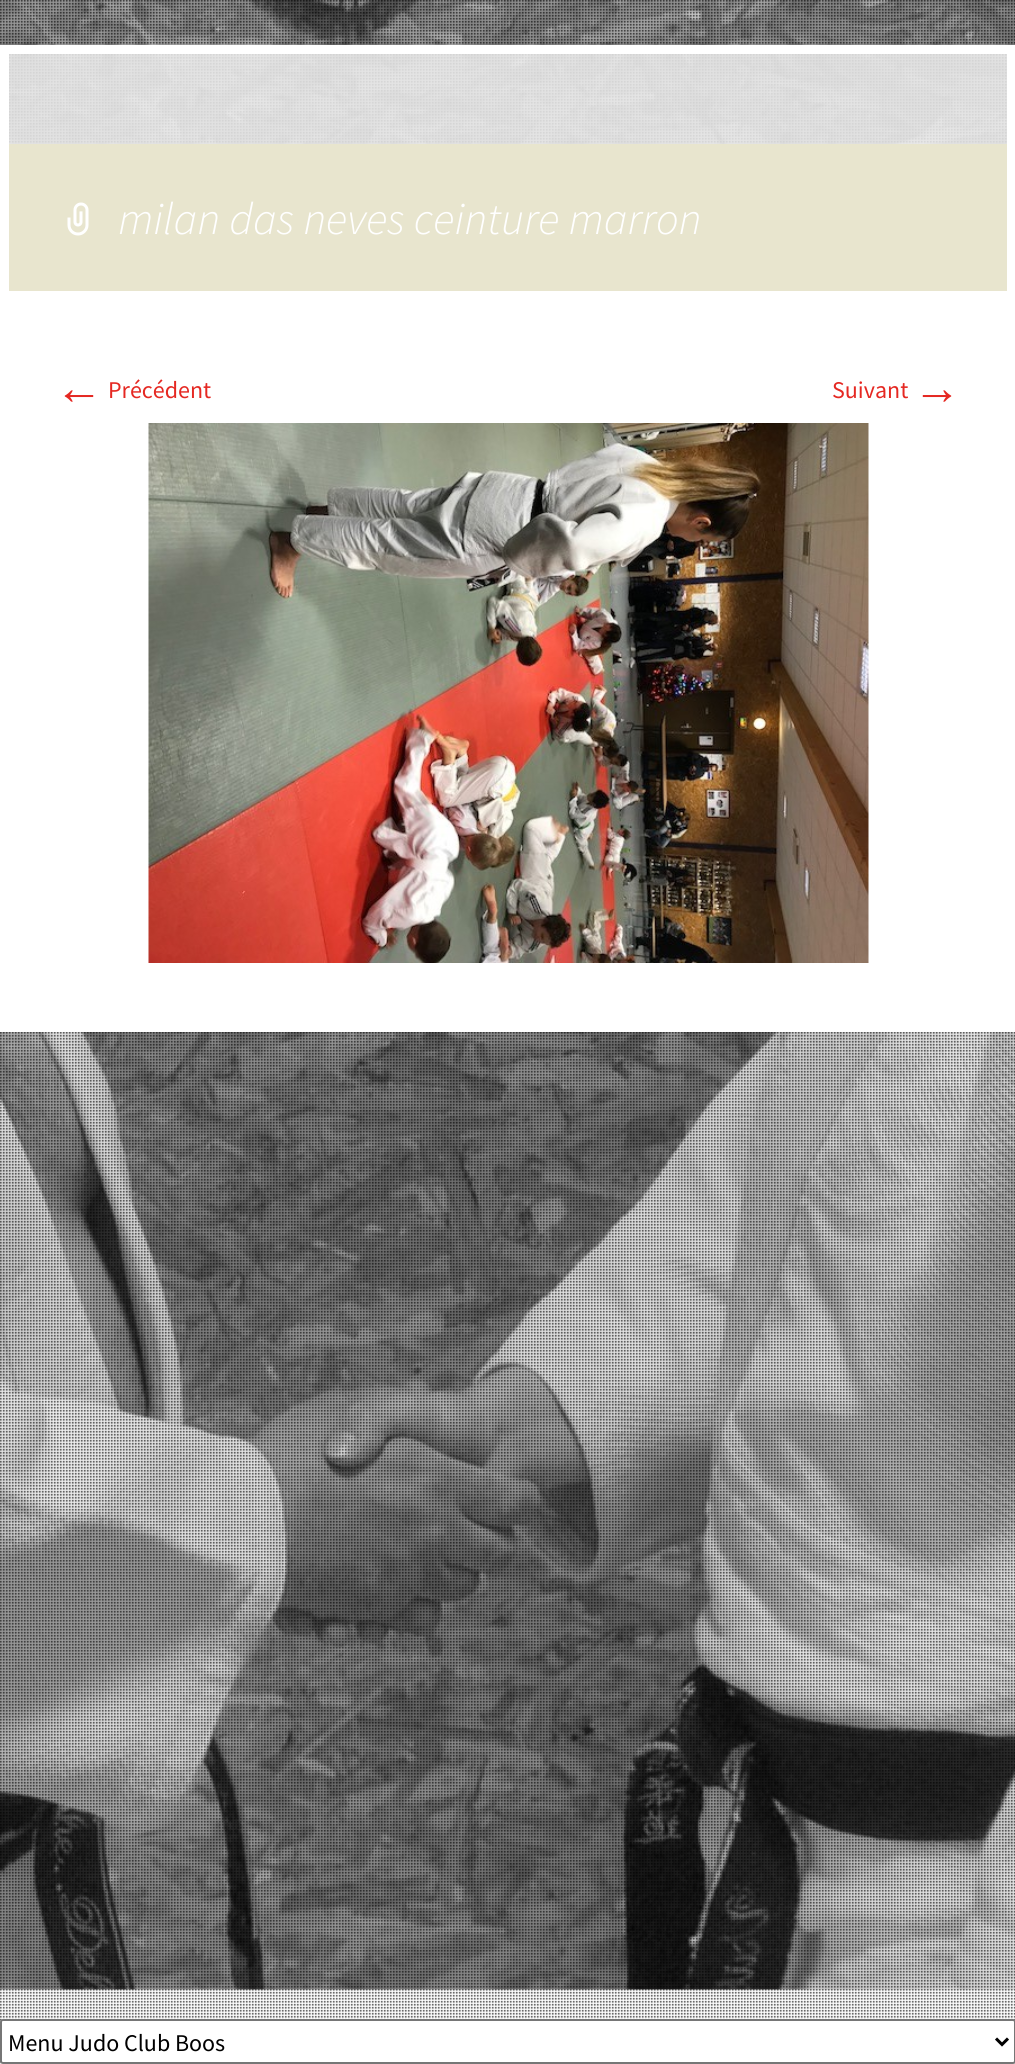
import math
import cairocffi as cairo

surface = cairo.ImageSurface(cairo.FORMAT_RGB24, 1015, 2064)
cr = cairo.Context(surface)
options = cairo.FontOptions()
options.set_hint_metrics(cairo.HINT_METRICS_OFF)
options.set_hint_style(cairo.HINT_STYLE_NONE)
cr.set_font_options(options)
cr.set_miter_limit(4)


def use_color(code):
    cr.set_source_rgb(*(v / 255 for v in bytes.fromhex(code[-6:])))


def round_rect(x, y, w, h, r):
    cr.new_sub_path()
    for i, (u, v) in enumerate([(x + w - r, y + h - r), (x + r, y + h - r), (x + r, y + r), (x + w - r, y + r)]):
        cr.arc(u, v, r, i * math.pi / 2, (i + 1) * math.pi / 2)
    cr.close_path()


def picture(path, x, y, w, h):
    cr.save()
    cr.set_source_surface(cairo.ImageSurface.create_from_png(path), x, y)
    cr.rectangle(x, y, w, h)
    cr.fill()
    cr.restore()


use_color("#ffffff")
cr.paint()
picture("img1.png", 0, 0, 1015, 1994)
picture("img2.png", 0, 0, 1015, 2064)
cr.set_source_rgba(0.941, 0.941, 0.941, 0.85)
cr.rectangle(9, 54, 998, 90)
cr.fill()
cr.rectangle(4.5, 49.5, 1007, 978)
use_color("#ffffff")
cr.set_line_width(9)
cr.stroke()
use_color("#e8e5ce")
cr.rectangle(9, 144, 998, 147)
cr.fill()
picture("img3.png", 67, 202, 22, 34)
cr.select_font_face("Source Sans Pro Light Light", cairo.FONT_SLANT_ITALIC)
cr.set_font_size(45)
use_color("#ffffff")
cr.move_to(118, 234)
cr.show_text("milan das neves ceinture marron")
cr.rectangle(9, 291, 998, 732)
cr.fill()
cr.select_font_face("Liberation Sans")
cr.set_font_size(48)
use_color("#e52822")
cr.move_to(55, 404)
cr.show_text("←")
cr.select_font_face("Source Sans Pro")
cr.set_font_size(24)
cr.move_to(108, 398)
cr.show_text("Précédent")
cr.move_to(832, 398)
cr.show_text("Suivant")
cr.select_font_face("Liberation Sans")
cr.set_font_size(48)
cr.move_to(913, 404)
cr.show_text("→")
picture("img4.png", 148, 423, 721, 540)
use_color("#ffffff")
round_rect(1, 2020, 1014, 43, 2)
cr.fill_preserve()
use_color("#767676")
cr.set_line_width(2)
cr.stroke()
cr.new_path()
cr.move_to(996, 2038.5)
cr.line_to(1002, 2044.5)
cr.line_to(1008, 2038.5)
use_color("#000000")
cr.set_line_width(3)
cr.stroke()
cr.select_font_face("Source Sans Pro")
cr.set_font_size(24)
cr.move_to(8, 2051)
cr.show_text("Menu Judo Club Boos")
surface.write_to_png("result.png")
